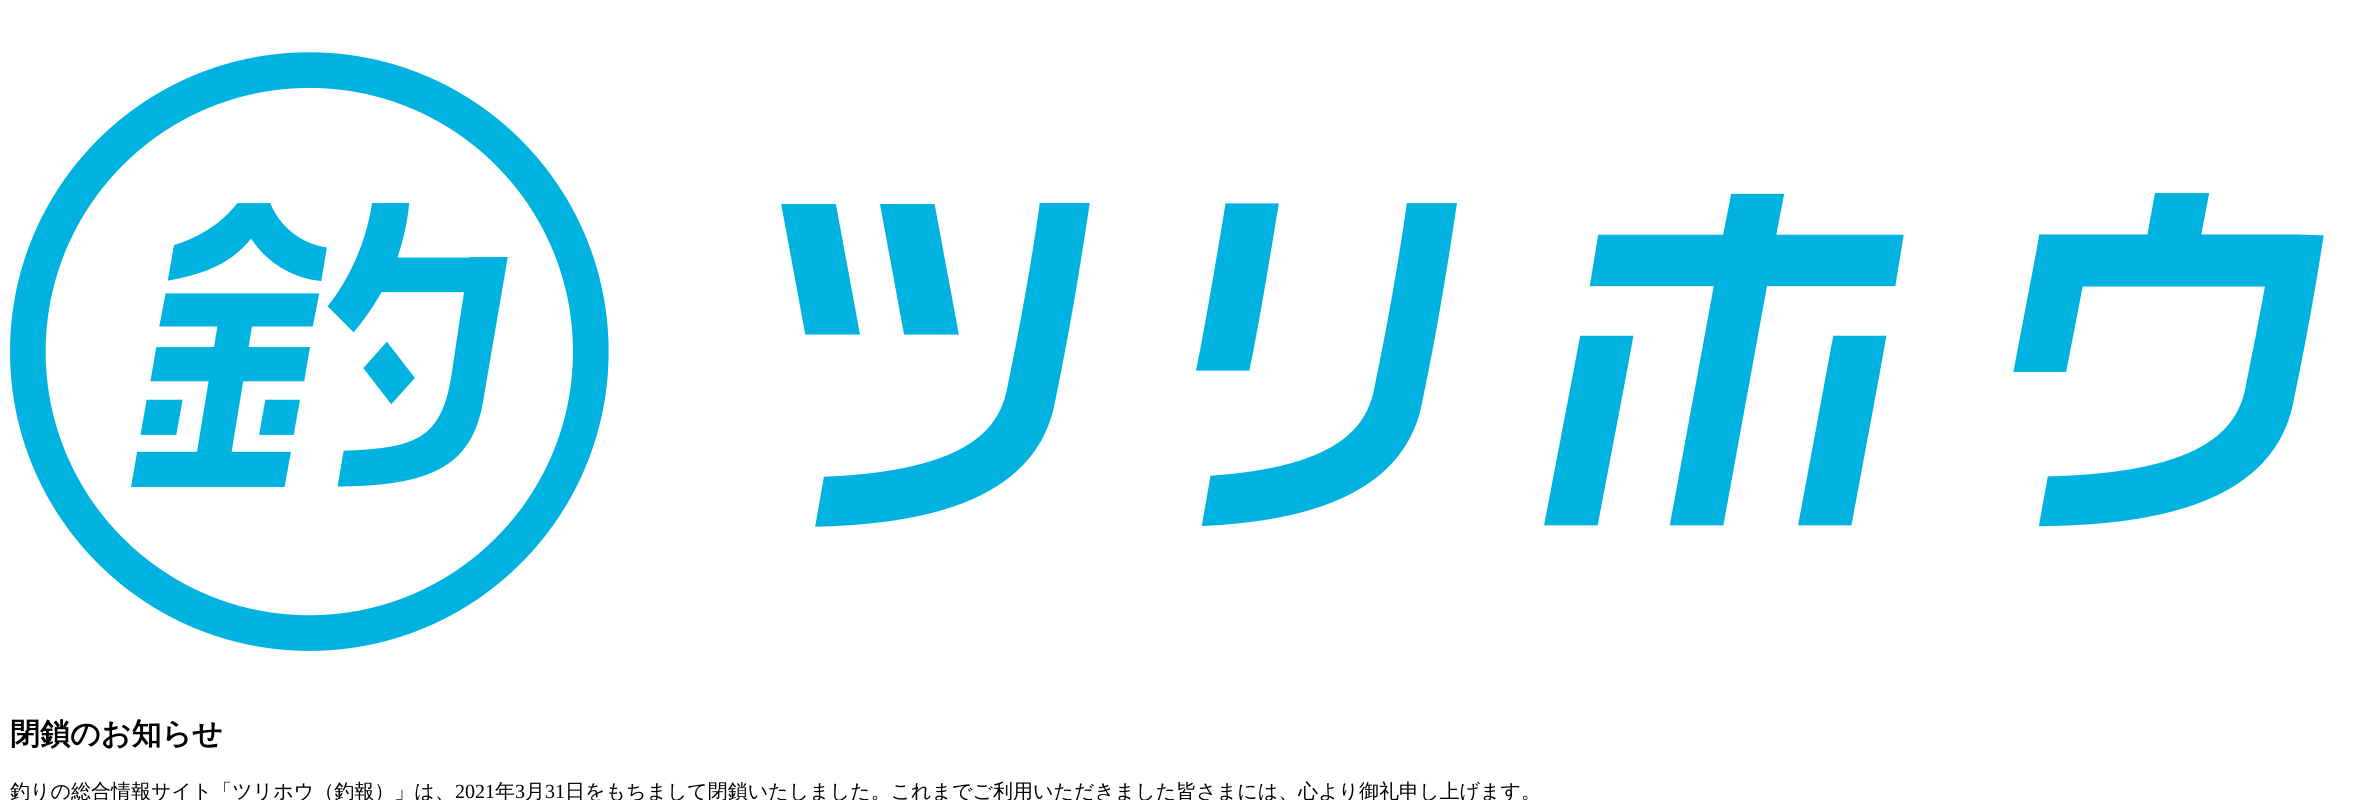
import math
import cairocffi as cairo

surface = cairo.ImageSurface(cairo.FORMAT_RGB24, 2362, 800)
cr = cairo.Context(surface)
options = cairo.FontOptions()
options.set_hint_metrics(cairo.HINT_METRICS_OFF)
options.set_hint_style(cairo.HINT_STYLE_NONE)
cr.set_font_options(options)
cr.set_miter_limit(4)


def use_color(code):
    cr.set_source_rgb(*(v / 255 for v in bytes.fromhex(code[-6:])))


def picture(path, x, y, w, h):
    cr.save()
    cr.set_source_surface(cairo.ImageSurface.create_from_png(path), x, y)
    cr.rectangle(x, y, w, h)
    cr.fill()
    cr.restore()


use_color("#ffffff")
cr.paint()
picture("img1.png", 10, 52, 2314, 599)
cr.select_font_face("WenQuanYi Zen Hei", cairo.FONT_SLANT_NORMAL, cairo.FONT_WEIGHT_BOLD)
cr.set_font_size(30)
use_color("#000000")
cr.move_to(10, 744)
cr.show_text("閉鎖のお知らせ")
cr.select_font_face("WenQuanYi Zen Hei Medium")
cr.set_font_size(20)
cr.move_to(10, 798)
cr.show_text("釣りの総合情報サイト「ツリホウ（釣報）」は、")
cr.select_font_face("Liberation Serif")
cr.move_to(455, 798)
cr.show_text("2021")
cr.select_font_face("WenQuanYi Zen Hei Medium")
cr.move_to(495, 798)
cr.show_text("年")
cr.select_font_face("Liberation Serif")
cr.move_to(515, 798)
cr.show_text("3")
cr.select_font_face("WenQuanYi Zen Hei Medium")
cr.move_to(525, 798)
cr.show_text("月")
cr.select_font_face("Liberation Serif")
cr.move_to(545, 798)
cr.show_text("31")
cr.select_font_face("WenQuanYi Zen Hei Medium")
cr.move_to(565, 798)
cr.show_text("日をもちまして閉鎖いたしました。これまでご利用いただきました皆さまには、心より御礼申し上げます。")
surface.write_to_png("result.png")
